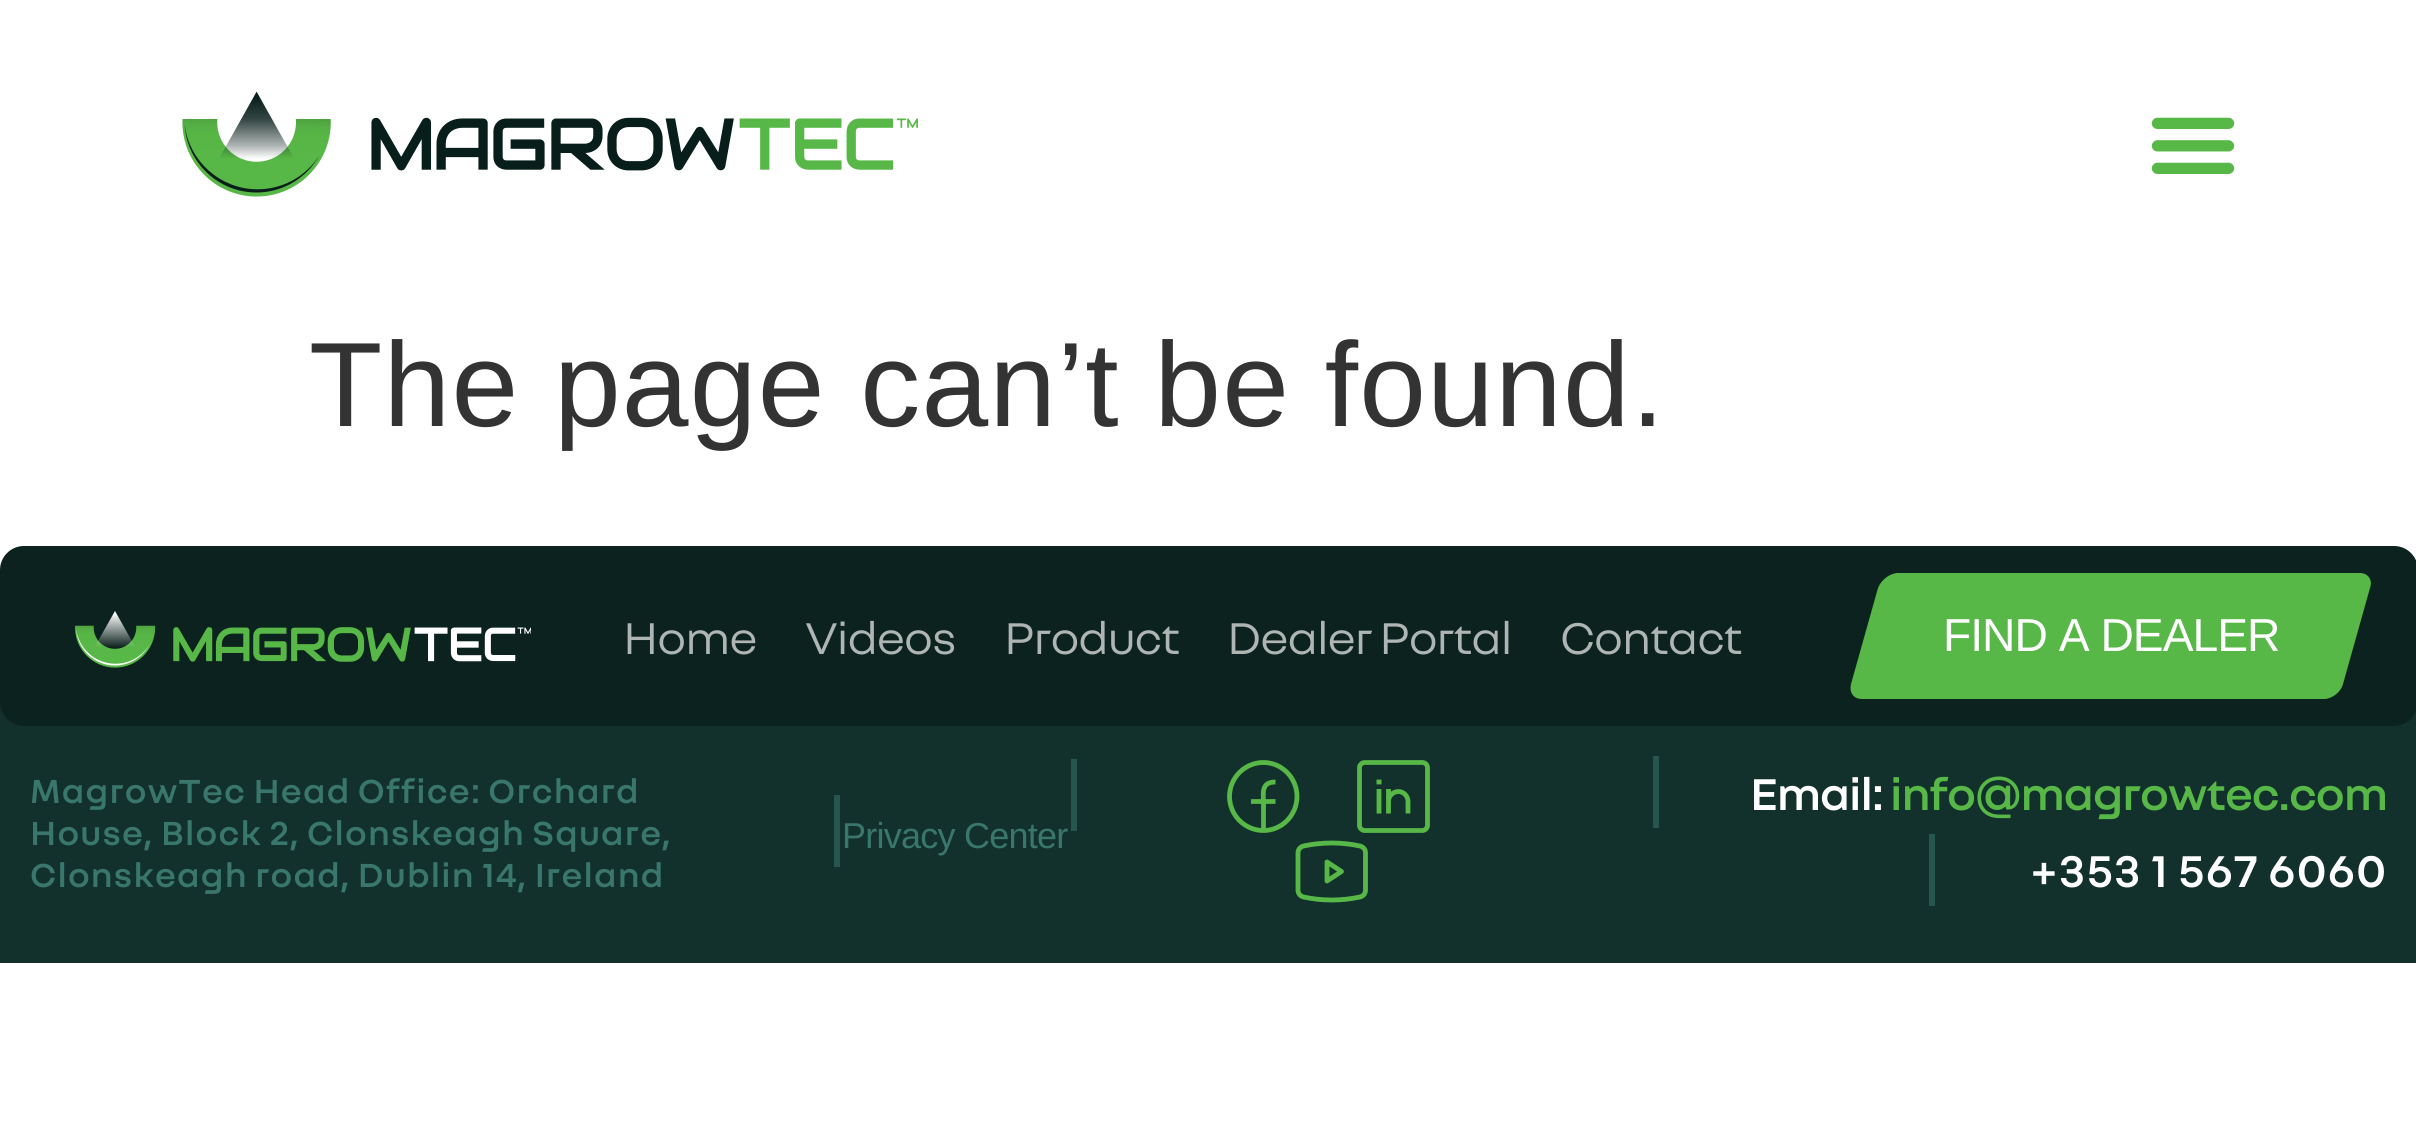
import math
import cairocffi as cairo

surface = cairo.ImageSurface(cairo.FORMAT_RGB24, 2416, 1135)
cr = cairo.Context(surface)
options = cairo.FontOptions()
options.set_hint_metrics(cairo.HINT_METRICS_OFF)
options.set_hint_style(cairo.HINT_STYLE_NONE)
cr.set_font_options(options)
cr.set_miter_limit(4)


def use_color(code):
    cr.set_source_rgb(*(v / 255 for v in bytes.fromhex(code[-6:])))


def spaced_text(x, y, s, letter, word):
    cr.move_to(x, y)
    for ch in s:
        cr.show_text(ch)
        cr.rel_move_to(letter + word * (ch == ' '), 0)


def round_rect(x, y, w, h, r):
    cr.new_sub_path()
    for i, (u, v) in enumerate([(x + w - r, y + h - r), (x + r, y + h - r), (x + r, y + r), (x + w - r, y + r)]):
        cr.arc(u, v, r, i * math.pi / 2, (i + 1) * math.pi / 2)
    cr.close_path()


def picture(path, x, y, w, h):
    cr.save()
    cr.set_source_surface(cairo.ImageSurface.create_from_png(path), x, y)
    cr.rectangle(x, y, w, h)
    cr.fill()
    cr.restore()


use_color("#ffffff")
cr.paint()
picture("img1.png", 182, 91, 736, 106)
picture("img2.png", 2151, 117, 84, 57)
cr.select_font_face("Liberation Sans")
cr.set_font_size(120)
use_color("#333333")
spaced_text(309, 426, "The page can’t be found.", 1.2, 0)
use_color("#13312c")
cr.rectangle(0, 702, 2416, 261)
cr.fill()
use_color("#0c221e")
round_rect(0, 546, 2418, 180, 24)
cr.fill()
picture("img3.png", 75, 611, 456, 57)
cr.select_font_face("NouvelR")
cr.set_font_size(48)
use_color("#aeb5b3")
spaced_text(623, 654, "Home", -1, 0)
spaced_text(805, 654, "Videos", -1, 0)
spaced_text(1004, 654, "Product", -1, 0)
spaced_text(1227, 654, "Dealer Portal", -1, 0)
spaced_text(1560, 654, "Contact", -1, 0)
use_color("#58b847")
cr.new_path()
cr.move_to(1898, 573)
cr.line_to(2360, 573)
cr.curve_to(2368, 573, 2373, 580, 2370, 588)
cr.line_to(2343, 684)
cr.curve_to(2341, 692, 2332, 699, 2324, 699)
cr.line_to(1862, 699)
cr.curve_to(1853, 699, 1849, 692, 1851, 684)
cr.line_to(1878, 588)
cr.curve_to(1881, 580, 1890, 573, 1898, 573)
cr.close_path()
cr.fill()
cr.select_font_face("Liberation Sans")
cr.set_font_size(46.25)
use_color("#ffffff")
spaced_text(1943, 651, "FIND A DEALER", -1, 0)
cr.select_font_face("NouvelR SemiBold")
cr.set_font_size(36)
use_color("#39776d")
spaced_text(30, 803, "MagrowTec Head Office: Orchard", 1.2, 0)
spaced_text(30, 845, "House, Block 2, Clonskeagh Square,", 1.2, 0)
spaced_text(30, 887, "Clonskeagh road, Dublin 14, Ireland", 1.2, 0)
use_color("#26564e")
cr.rectangle(834, 795, 6, 72)
cr.fill()
cr.select_font_face("Liberation Sans")
use_color("#39776d")
spaced_text(842, 848, "Privacy Center", -0.75, 0)
use_color("#26564e")
cr.rectangle(1071, 759, 6, 72)
cr.fill()
cr.new_path()
cr.move_to(1263.5, 830.5)
cr.curve_to(1244.5, 830.5, 1229.5, 815, 1229.5, 796.5)
cr.curve_to(1229.5, 778, 1244.5, 762.5, 1263.5, 762.5)
cr.curve_to(1282, 762.5, 1297, 778, 1297, 796.5)
cr.curve_to(1297, 815, 1282, 830.5, 1263.5, 830.5)
cr.close_path()
cr.move_to(1263.5, 830.5)
cr.line_to(1263.5, 804.5)
cr.curve_to(1263.5, 793.5, 1260.5, 782, 1275.5, 782)
cr.move_to(1251, 801.5)
cr.line_to(1275.5, 801.5)
use_color("#58b847")
cr.set_line_width(4.8)
cr.stroke()
cr.new_path()
cr.move_to(1379, 789)
cr.line_to(1379, 813.5)
cr.move_to(1408, 813.5)
cr.line_to(1408, 801.5)
cr.curve_to(1408, 796, 1403.5, 791.5, 1398.5, 791.5)
cr.curve_to(1393, 791.5, 1388.5, 796, 1388.5, 801.5)
cr.line_to(1388.5, 813.5)
cr.line_to(1388.5, 789)
cr.move_to(1376.5, 782)
cr.line_to(1381.5, 782)
cr.move_to(1364.5, 762.5)
cr.line_to(1422.5, 762.5)
cr.curve_to(1425, 762.5, 1427.5, 765, 1427.5, 767.5)
cr.line_to(1427.5, 825.5)
cr.curve_to(1427.5, 828, 1425, 830.5, 1422.5, 830.5)
cr.line_to(1364.5, 830.5)
cr.curve_to(1362, 830.5, 1359.5, 828, 1359.5, 825.5)
cr.line_to(1359.5, 767.5)
cr.curve_to(1359.5, 765, 1362, 762.5, 1364.5, 762.5)
cr.close_path()
cr.stroke()
cr.new_path()
cr.move_to(1298, 890)
cr.line_to(1298, 853)
cr.curve_to(1298, 849.5, 1300, 847, 1303.5, 846)
cr.curve_to(1322, 842, 1341.5, 842, 1360, 846)
cr.curve_to(1363.5, 847, 1365.5, 849.5, 1365.5, 853)
cr.line_to(1365.5, 890)
cr.curve_to(1365.5, 893.5, 1363.5, 896, 1360, 897)
cr.curve_to(1341.5, 901, 1322, 901, 1303.5, 897)
cr.curve_to(1300, 896, 1298, 893.5, 1298, 890)
cr.close_path()
cr.set_line_join(cairo.LINE_JOIN_ROUND)
cr.stroke()
cr.new_path()
cr.move_to(1327, 881)
cr.line_to(1327, 862)
cr.line_to(1341.5, 871.5)
cr.close_path()
cr.stroke()
use_color("#26564e")
cr.rectangle(1653, 756, 6, 72)
cr.fill()
cr.select_font_face("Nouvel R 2 SemiBold")
cr.set_font_size(48)
use_color("#ffffff")
spaced_text(1750, 810, "Email:", -1, 0)
use_color("#58b847")
spaced_text(1890, 810, "info@magrowtec.com", -1, 0)
use_color("#26564e")
cr.rectangle(1929, 834, 6, 72)
cr.fill()
use_color("#ffffff")
spaced_text(2030, 887, "+353 1 567 6060", 1.2, 0)
surface.write_to_png("result.png")
